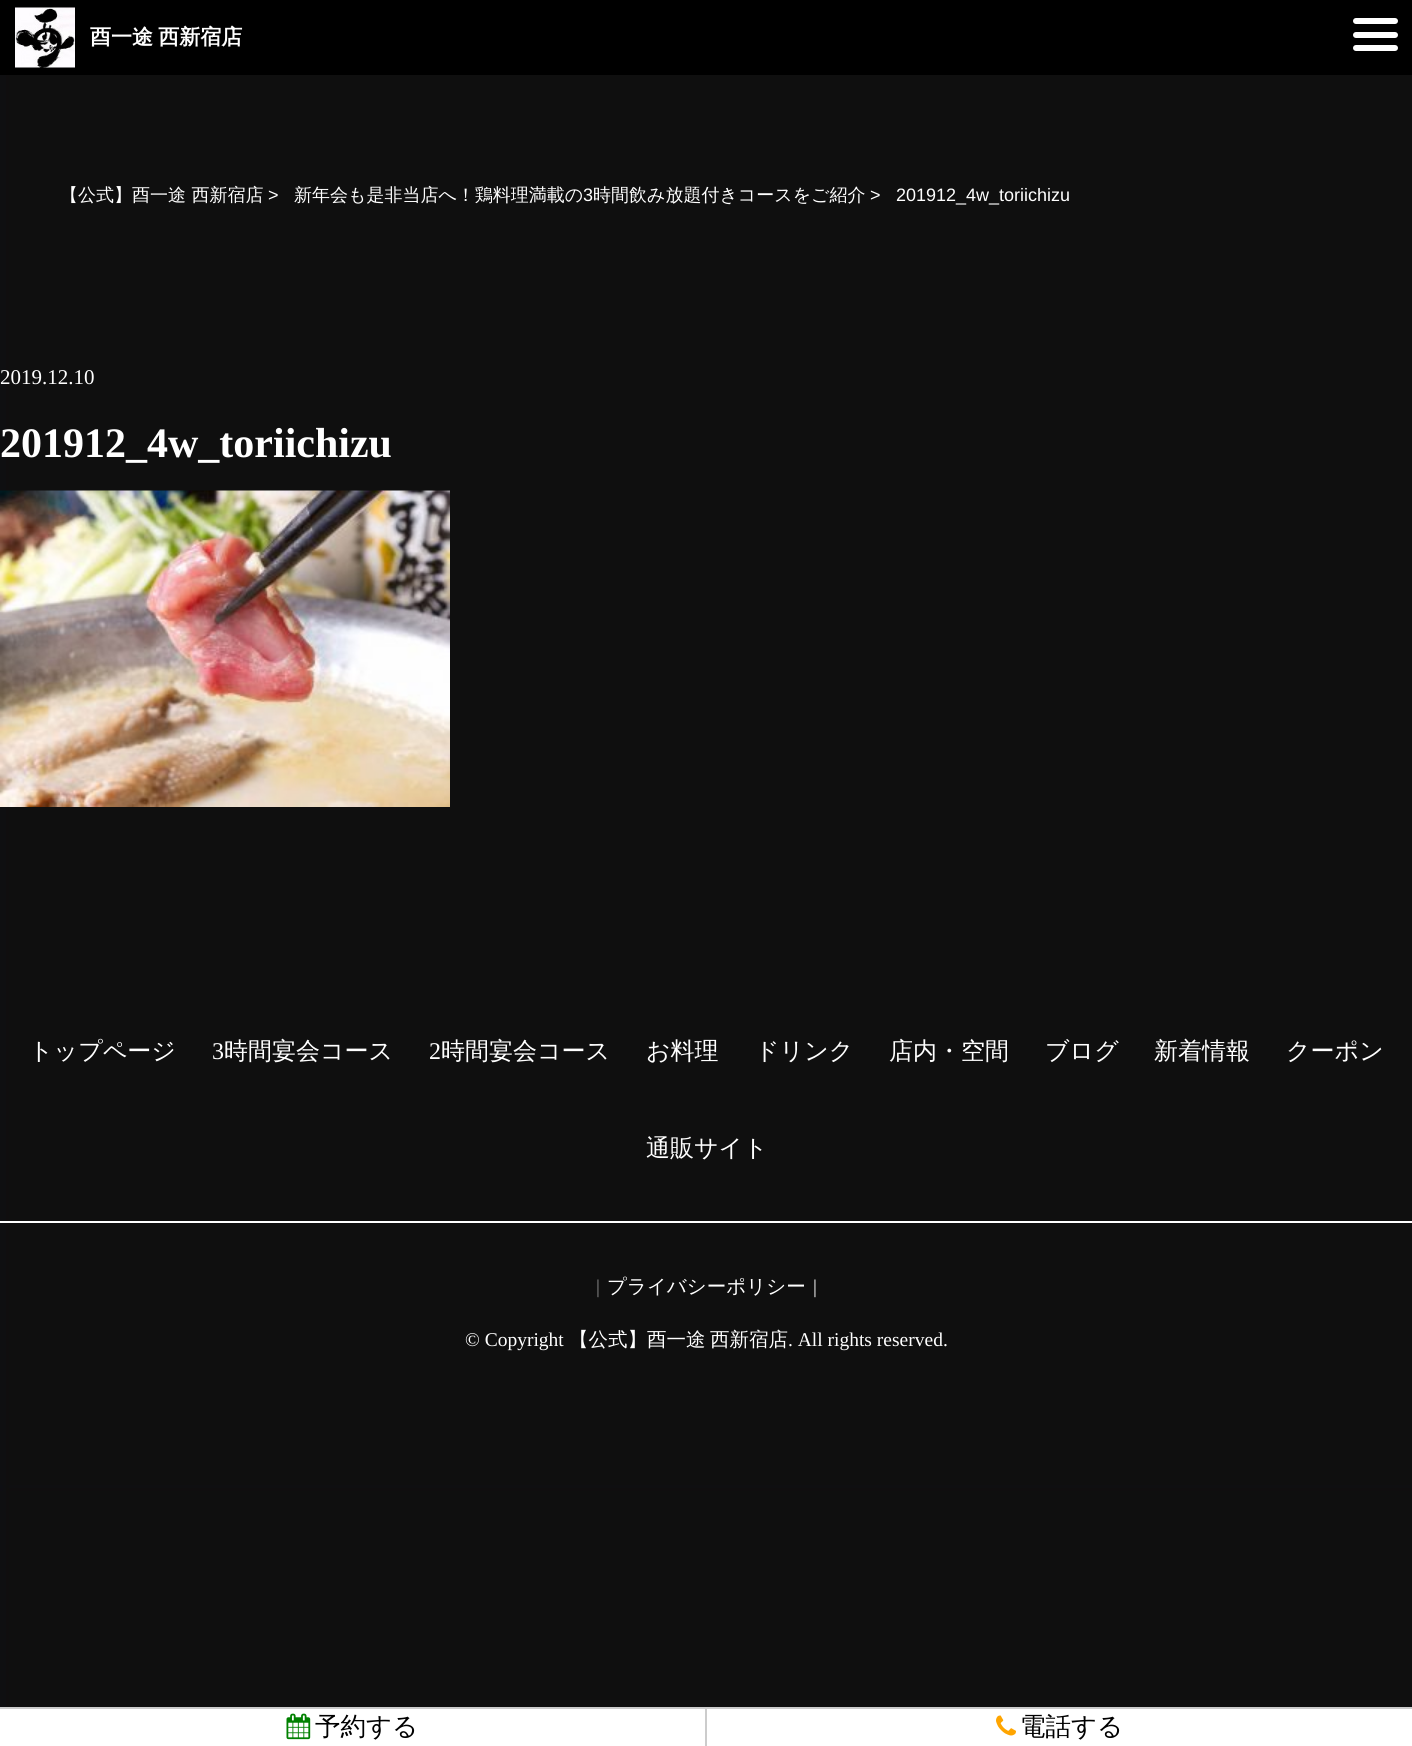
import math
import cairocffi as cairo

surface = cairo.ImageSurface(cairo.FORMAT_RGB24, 1412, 1746)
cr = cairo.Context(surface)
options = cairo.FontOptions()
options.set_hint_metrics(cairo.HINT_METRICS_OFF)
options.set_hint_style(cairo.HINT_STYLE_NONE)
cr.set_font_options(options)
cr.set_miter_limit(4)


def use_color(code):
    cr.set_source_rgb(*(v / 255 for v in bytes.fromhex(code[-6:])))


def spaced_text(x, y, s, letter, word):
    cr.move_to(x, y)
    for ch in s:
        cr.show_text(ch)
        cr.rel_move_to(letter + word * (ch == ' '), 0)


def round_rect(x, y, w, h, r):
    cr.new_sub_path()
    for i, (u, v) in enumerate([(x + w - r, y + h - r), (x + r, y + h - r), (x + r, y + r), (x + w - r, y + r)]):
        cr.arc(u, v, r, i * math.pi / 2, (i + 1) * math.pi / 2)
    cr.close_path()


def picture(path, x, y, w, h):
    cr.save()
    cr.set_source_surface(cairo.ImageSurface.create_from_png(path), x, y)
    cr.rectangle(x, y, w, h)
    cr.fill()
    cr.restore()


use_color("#ffffff")
cr.paint()
picture("img1.png", 0, 75, 1412, 1632)
use_color("#000000")
cr.rectangle(0, 0, 1412, 75)
cr.fill()
picture("img2.png", 15, 7, 60, 61)
cr.select_font_face("WenQuanYi Zen Hei", cairo.FONT_SLANT_NORMAL, cairo.FONT_WEIGHT_BOLD)
cr.set_font_size(21)
use_color("#ffffff")
spaced_text(90, 44, "酉一途 西新宿店", 0, -1)
round_rect(1353, 18, 45, 6, 3)
cr.fill()
round_rect(1353, 32, 45, 6, 3)
cr.fill()
round_rect(1353, 45, 45, 6, 3)
cr.fill()
cr.select_font_face("WenQuanYi Zen Hei Medium")
cr.set_font_size(18)
cr.move_to(60, 201)
cr.show_text("【公式】酉一途 西新宿店")
cr.select_font_face("Liberation Sans")
cr.move_to(268, 201)
cr.show_text(">")
cr.select_font_face("WenQuanYi Zen Hei Medium")
cr.move_to(294, 201)
cr.show_text("新年会も是非当店へ！鶏料理満載の")
cr.select_font_face("Liberation Sans")
cr.move_to(583, 201)
cr.show_text("3")
cr.select_font_face("WenQuanYi Zen Hei Medium")
cr.move_to(593, 201)
cr.show_text("時間飲み放題付きコースをご紹介")
cr.select_font_face("Liberation Sans")
cr.move_to(870, 201)
cr.show_text(">")
cr.move_to(896, 201)
cr.show_text("201912_4w_toriichizu")
cr.select_font_face("Liberation Serif")
cr.set_font_size(21)
cr.move_to(0, 384)
cr.show_text("2019.12.10")
cr.select_font_face("Liberation Serif", cairo.FONT_SLANT_NORMAL, cairo.FONT_WEIGHT_BOLD)
cr.set_font_size(42)
cr.move_to(0, 457)
cr.show_text("201912_4w_toriichizu")
picture("img3.png", 0, 490, 450, 317)
cr.select_font_face("WenQuanYi Zen Hei Medium")
cr.set_font_size(24)
cr.move_to(29, 1059)
cr.show_text("トップページ")
cr.select_font_face("Liberation Serif")
cr.move_to(212, 1059)
cr.show_text("3")
cr.select_font_face("WenQuanYi Zen Hei Medium")
cr.move_to(224, 1059)
cr.show_text("時間宴会コース")
cr.select_font_face("Liberation Serif")
cr.move_to(429, 1059)
cr.show_text("2")
cr.select_font_face("WenQuanYi Zen Hei Medium")
cr.move_to(441, 1059)
cr.show_text("時間宴会コース")
cr.move_to(646, 1059)
cr.show_text("お料理")
cr.move_to(755, 1059)
cr.show_text("ドリンク")
cr.move_to(889, 1059)
cr.show_text("店内・空間")
cr.move_to(1045, 1059)
cr.show_text("ブログ")
cr.move_to(1154, 1059)
cr.show_text("新着情報")
cr.move_to(1286, 1059)
cr.show_text("クーポン")
cr.move_to(646, 1156)
cr.show_text("通販サイト")
cr.rectangle(0, 1221, 1412, 2)
cr.fill()
cr.select_font_face("Liberation Serif")
cr.set_font_size(19.5)
use_color("#888888")
cr.move_to(596, 1293)
cr.show_text("|")
cr.select_font_face("WenQuanYi Zen Hei Medium")
use_color("#ffffff")
cr.move_to(607, 1293)
cr.show_text("プライバシーポリシー")
cr.select_font_face("Liberation Serif")
cr.move_to(813, 1293)
cr.show_text("|")
cr.move_to(465, 1346)
cr.show_text("© Copyright")
cr.select_font_face("WenQuanYi Zen Hei Medium")
cr.move_to(569, 1346)
cr.show_text("【公式】酉一途")
cr.move_to(710, 1346)
cr.show_text("西新宿店")
cr.select_font_face("Liberation Serif")
cr.move_to(788, 1346)
cr.show_text(". All rights reserved.")
use_color("#cccccc")
cr.rectangle(0, 1707, 1412, 2)
cr.fill()
cr.rectangle(705, 1709, 2, 37)
cr.fill()
picture("img4.png", 286, 1713, 25, 27)
cr.select_font_face("WenQuanYi Zen Hei Medium")
cr.set_font_size(25.5)
use_color("#000000")
cr.move_to(315, 1735)
cr.show_text("予約する")
picture("img5.png", 996, 1715, 20, 21)
cr.move_to(1020, 1735)
cr.show_text("電話する")
surface.write_to_png("result.png")
